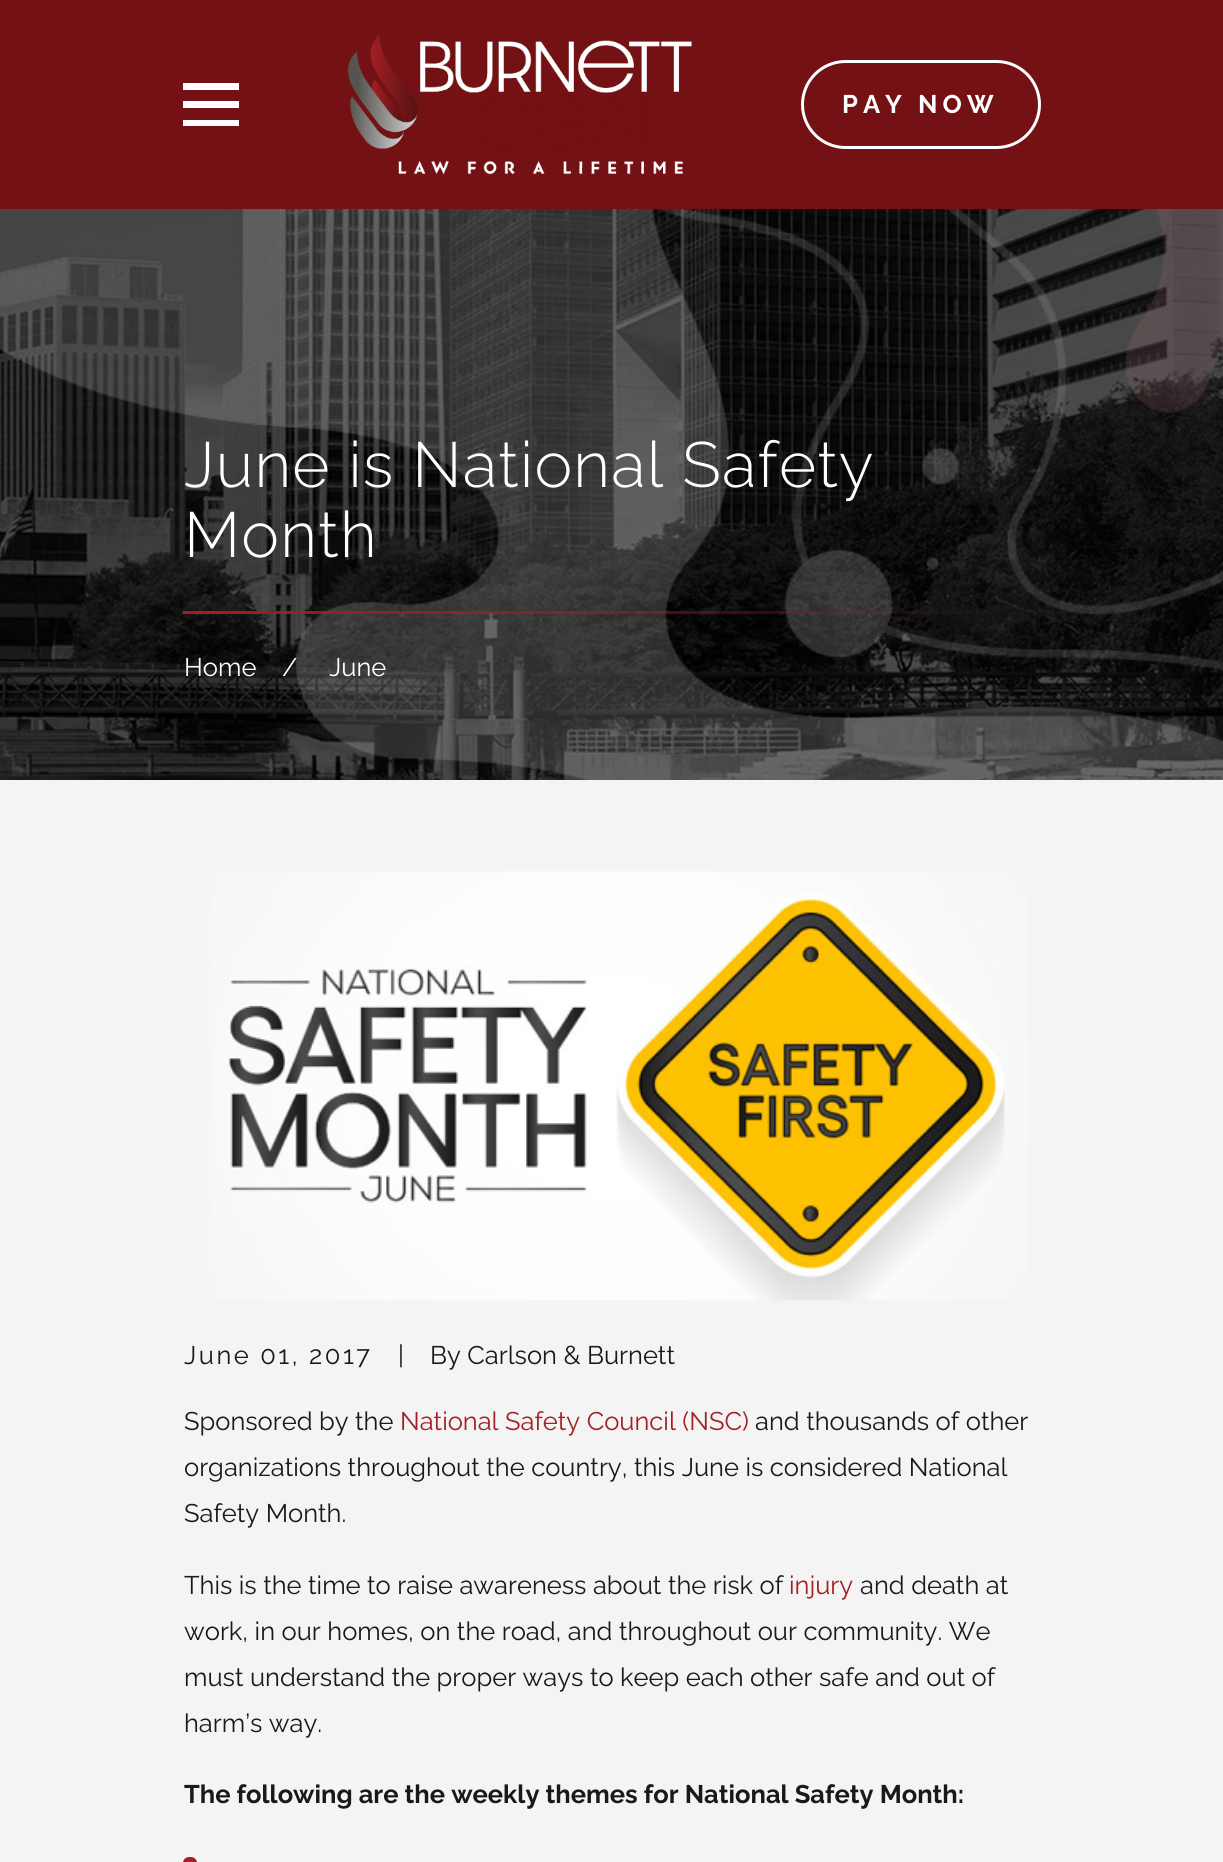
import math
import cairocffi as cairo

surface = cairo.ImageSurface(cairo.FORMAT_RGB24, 1223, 1862)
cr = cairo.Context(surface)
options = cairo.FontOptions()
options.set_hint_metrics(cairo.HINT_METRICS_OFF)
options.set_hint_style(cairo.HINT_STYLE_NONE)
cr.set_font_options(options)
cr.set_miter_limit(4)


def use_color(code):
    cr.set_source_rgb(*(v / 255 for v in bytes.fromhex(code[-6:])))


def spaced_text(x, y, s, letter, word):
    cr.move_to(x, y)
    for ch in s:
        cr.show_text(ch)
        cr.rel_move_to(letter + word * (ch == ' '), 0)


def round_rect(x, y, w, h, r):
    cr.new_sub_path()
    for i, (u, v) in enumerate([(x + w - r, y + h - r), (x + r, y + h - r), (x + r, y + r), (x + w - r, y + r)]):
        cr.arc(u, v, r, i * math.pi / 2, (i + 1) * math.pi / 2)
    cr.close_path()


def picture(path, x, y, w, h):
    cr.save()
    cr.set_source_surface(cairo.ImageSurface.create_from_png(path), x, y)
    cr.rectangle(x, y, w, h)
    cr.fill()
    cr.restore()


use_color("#f4f4f4")
cr.paint()
use_color("#731114")
cr.rectangle(0, 0, 1223, 209)
cr.fill()
use_color("#ffffff")
cr.new_path()
cr.move_to(183, 83)
cr.line_to(183, 90)
cr.line_to(239, 90)
cr.line_to(239, 83)
cr.close_path()
cr.move_to(183, 101)
cr.line_to(183, 108)
cr.line_to(239, 108)
cr.line_to(239, 101)
cr.close_path()
cr.move_to(183, 120)
cr.line_to(183, 126)
cr.line_to(239, 126)
cr.line_to(239, 120)
cr.close_path()
cr.fill()
picture("img1.png", 347, 35, 345, 140)
round_rect(802.5, 61.5, 237, 86, 43)
cr.set_line_width(3)
cr.stroke()
cr.select_font_face("Raleway", cairo.FONT_SLANT_NORMAL, cairo.FONT_WEIGHT_BOLD)
cr.set_font_size(25.5)
spaced_text(842, 113, "PAY NOW", 5, 0)
picture("img2.png", 0, 209, 1223, 571)
cr.select_font_face("Raleway Light")
cr.set_font_size(63.75)
spaced_text(184, 487, "June is National Safety", 1.25, 0)
spaced_text(184, 557, "Month", 1.25, 0)
cr.select_font_face("Raleway")
cr.set_font_size(25.5)
cr.move_to(184, 676)
cr.show_text("Home")
cr.move_to(282, 676)
cr.show_text("/")
cr.move_to(329, 676)
cr.show_text("June")
picture("img3.png", 209, 871, 819, 430)
use_color("#191919")
spaced_text(184, 1364, "June 01, 2017", 2.5, 0)
cr.move_to(398, 1364)
cr.show_text("|")
cr.move_to(430, 1364)
cr.show_text("By Carlson & Burnett")
cr.move_to(184, 1430)
cr.show_text("Sponsored by the")
use_color("#a41e23")
cr.move_to(400, 1430)
cr.show_text("National Safety Council (NSC)")
use_color("#191919")
cr.move_to(755, 1430)
cr.show_text("and thousands of other")
cr.move_to(184, 1476)
cr.show_text("organizations throughout the country, this June is considered National")
cr.move_to(184, 1522)
cr.show_text("Safety Month.")
cr.move_to(184, 1594)
cr.show_text("This is the time to raise awareness about the risk of")
use_color("#a41e23")
cr.move_to(789, 1594)
cr.show_text("injury")
use_color("#191919")
cr.move_to(860, 1594)
cr.show_text("and death at")
cr.move_to(184, 1640)
cr.show_text("work, in our homes, on the road, and throughout our community. We")
cr.move_to(184, 1686)
cr.show_text("must understand the proper ways to keep each other safe and out of")
cr.move_to(184, 1732)
cr.show_text("harm’s way.")
cr.select_font_face("Raleway", cairo.FONT_SLANT_NORMAL, cairo.FONT_WEIGHT_BOLD)
cr.move_to(184, 1803)
cr.show_text("The following are the weekly themes for National Safety Month:")
use_color("#a41e23")
round_rect(183, 1857, 14, 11, 6)
cr.fill()
surface.write_to_png("result.png")
